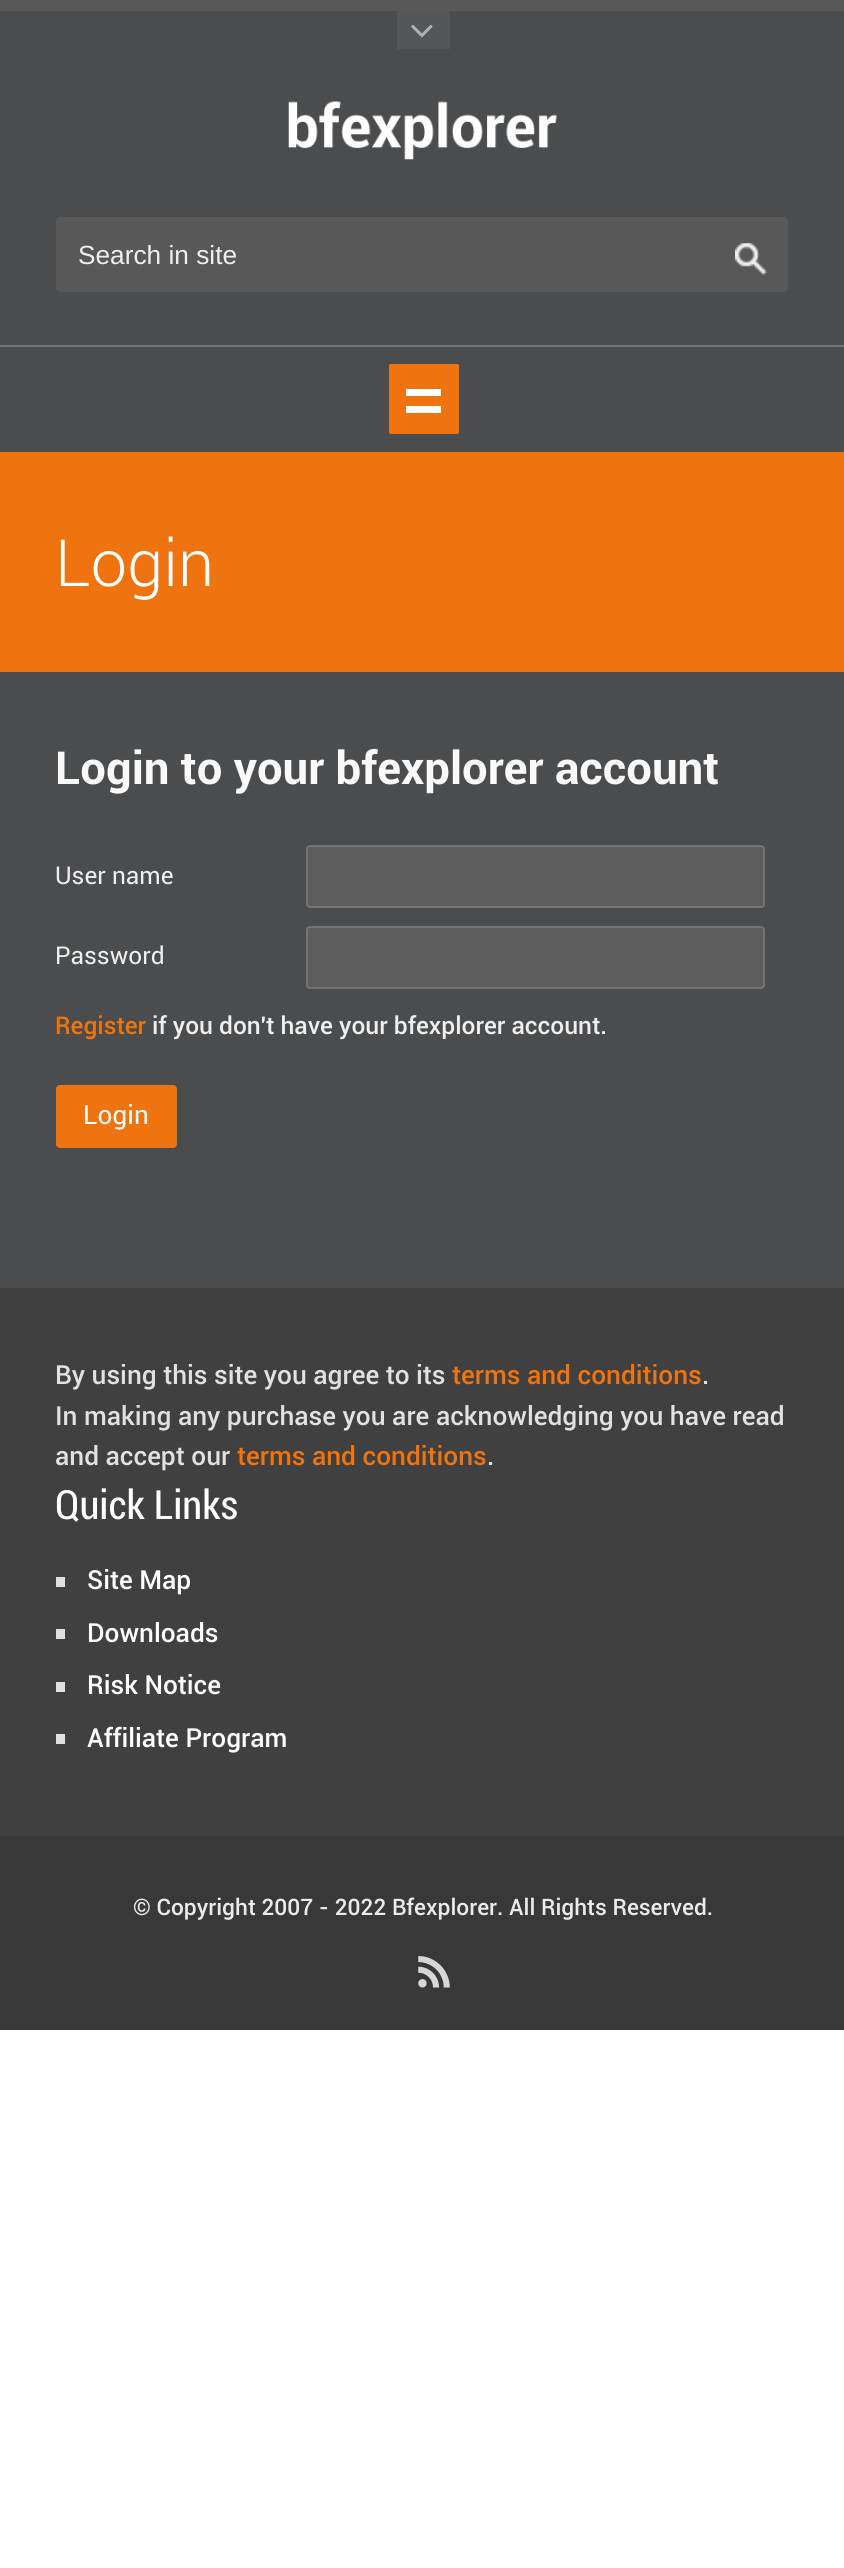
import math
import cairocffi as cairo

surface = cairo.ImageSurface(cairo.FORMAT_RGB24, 844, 2568)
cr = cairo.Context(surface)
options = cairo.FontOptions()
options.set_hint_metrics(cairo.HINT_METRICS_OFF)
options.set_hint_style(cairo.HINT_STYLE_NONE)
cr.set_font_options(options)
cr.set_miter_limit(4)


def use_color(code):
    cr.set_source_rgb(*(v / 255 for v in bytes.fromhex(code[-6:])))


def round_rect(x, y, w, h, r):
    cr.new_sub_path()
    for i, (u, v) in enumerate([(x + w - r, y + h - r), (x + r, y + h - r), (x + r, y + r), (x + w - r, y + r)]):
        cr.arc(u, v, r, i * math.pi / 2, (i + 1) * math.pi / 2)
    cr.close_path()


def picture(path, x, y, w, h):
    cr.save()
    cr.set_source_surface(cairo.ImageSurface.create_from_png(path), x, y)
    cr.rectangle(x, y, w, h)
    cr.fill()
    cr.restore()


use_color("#ffffff")
cr.paint()
use_color("#4b4c4d")
cr.rectangle(0, 11, 844, 1277)
cr.fill()
use_color("#585858")
cr.rectangle(0, 0, 844, 11)
cr.fill()
use_color("#545657")
cr.rectangle(397, 11, 53, 38)
cr.fill()
picture("img1.png", 411, 24, 22, 14)
picture("img2.png", 288, 101, 269, 59)
use_color("#585858")
round_rect(56, 217, 732, 75, 4)
cr.fill()
cr.select_font_face("Liberation Sans")
cr.set_font_size(26.25)
use_color("#f0efef")
cr.move_to(78, 264)
cr.show_text("Search in site")
picture("img3.png", 735, 243, 32, 32)
use_color("#737373")
cr.rectangle(0, 345, 844, 2)
cr.fill()
use_color("#ef730e")
round_rect(389, 364, 70, 70, 2)
cr.fill()
use_color("#ffffff")
cr.rectangle(406, 389, 35, 7)
cr.fill()
cr.rectangle(406, 406, 35, 7)
cr.fill()
use_color("#ef730e")
cr.rectangle(0, 452, 844, 220)
cr.fill()
cr.select_font_face("Roboto Light")
cr.set_font_size(65)
use_color("#ffffff")
cr.move_to(55, 586)
cr.show_text("Login")
cr.select_font_face("Roboto", cairo.FONT_SLANT_NORMAL, cairo.FONT_WEIGHT_BOLD)
cr.set_font_size(45.5)
use_color("#f9f9f9")
cr.move_to(55, 784)
cr.show_text("Login to your bfexplorer account")
cr.select_font_face("Roboto")
cr.set_font_size(24.5)
use_color("#f0efef")
cr.move_to(55, 884)
cr.show_text("User name")
use_color("#5d5d5d")
round_rect(307, 846, 457, 61, 3)
cr.fill_preserve()
use_color("#737373")
cr.stroke()
use_color("#f0efef")
cr.move_to(55, 964)
cr.show_text("Password")
use_color("#5d5d5d")
round_rect(307, 927, 457, 61, 3)
cr.fill_preserve()
use_color("#737373")
cr.stroke()
cr.select_font_face("Roboto Medium")
use_color("#ef730e")
cr.move_to(55, 1034)
cr.show_text("Register")
use_color("#f0efef")
cr.move_to(152, 1034)
cr.show_text("if you don't have your bfexplorer account.")
use_color("#ef730e")
round_rect(56, 1085, 121, 63, 4)
cr.fill()
cr.select_font_face("Roboto")
cr.set_font_size(26.25)
use_color("#ffffff")
cr.move_to(83, 1124)
cr.show_text("Login")
use_color("#404041")
cr.rectangle(0, 1288, 844, 548)
cr.fill()
cr.select_font_face("Roboto Medium")
use_color("#e1e1e1")
cr.move_to(55, 1384)
cr.show_text("By using this site you agree to its")
use_color("#ef730e")
cr.move_to(452, 1384)
cr.show_text("terms and conditions")
use_color("#e1e1e1")
cr.move_to(702, 1384)
cr.show_text(".")
cr.move_to(55, 1425)
cr.show_text("In making any purchase you are acknowledging you have read")
cr.move_to(55, 1465)
cr.show_text("and accept our")
use_color("#ef730e")
cr.move_to(237, 1465)
cr.show_text("terms and conditions")
use_color("#e1e1e1")
cr.move_to(487, 1465)
cr.show_text(".")
cr.select_font_face("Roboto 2")
cr.set_font_size(40.25)
use_color("#ffffff")
cr.move_to(55, 1519)
cr.show_text("Quick Links")
use_color("#e1e1e1")
cr.rectangle(56, 1577, 9, 10)
cr.fill()
cr.select_font_face("Roboto Medium")
cr.set_font_size(26.25)
use_color("#ffffff")
cr.move_to(87, 1589)
cr.show_text("Site Map")
use_color("#e1e1e1")
cr.rectangle(56, 1629, 9, 10)
cr.fill()
use_color("#ffffff")
cr.move_to(87, 1642)
cr.show_text("Downloads")
use_color("#e1e1e1")
cr.rectangle(56, 1682, 9, 10)
cr.fill()
use_color("#ffffff")
cr.move_to(87, 1694)
cr.show_text("Risk Notice")
use_color("#e1e1e1")
cr.rectangle(56, 1734, 9, 10)
cr.fill()
use_color("#ffffff")
cr.move_to(87, 1747)
cr.show_text("Affiliate Program")
use_color("#383838")
cr.rectangle(0, 1836, 844, 194)
cr.fill()
cr.set_font_size(22.75)
use_color("#eaeaea")
cr.move_to(133, 1915)
cr.show_text("© Copyright 2007 - 2022 Bfexplorer. All Rights Reserved.")
picture("img4.png", 418, 1956, 32, 32)
surface.write_to_png("result.png")
